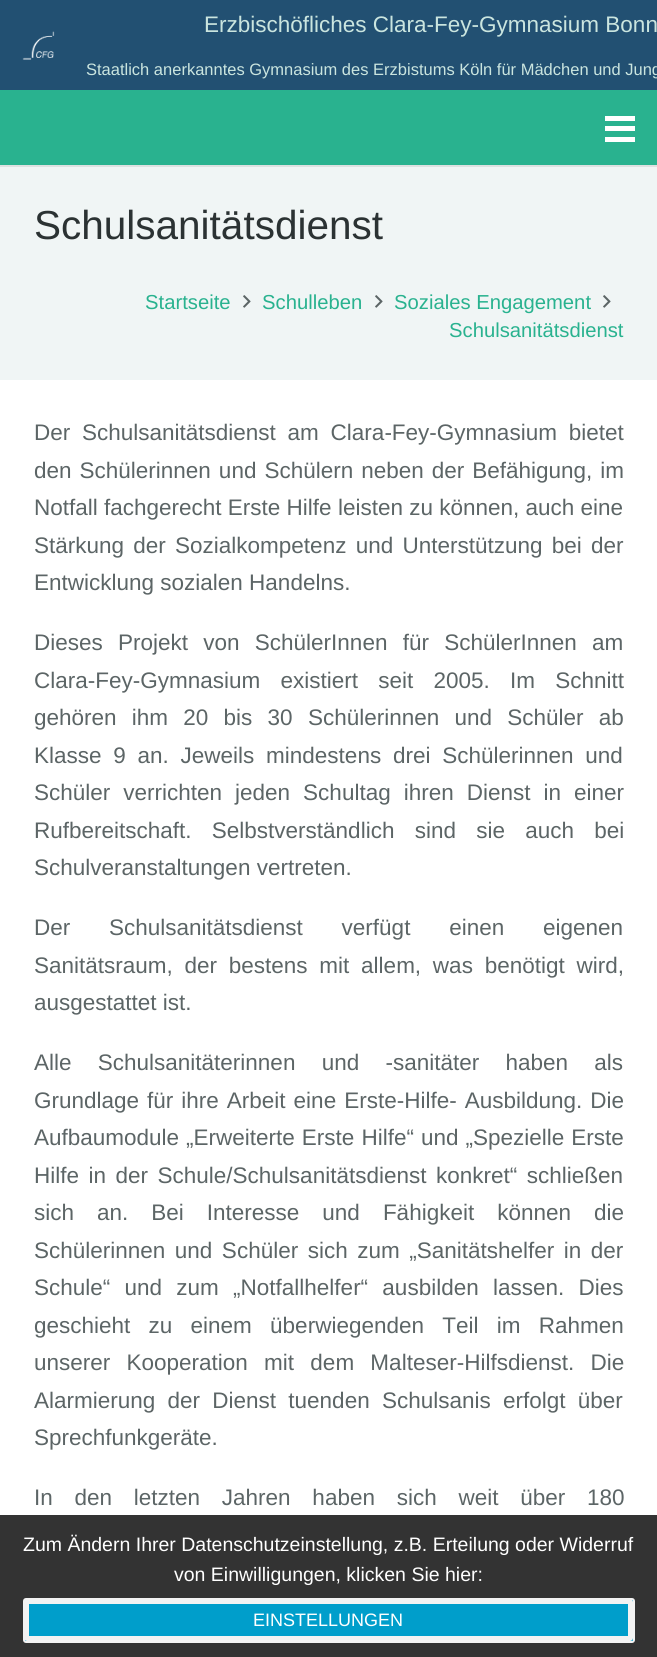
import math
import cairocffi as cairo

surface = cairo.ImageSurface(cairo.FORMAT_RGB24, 657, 1657)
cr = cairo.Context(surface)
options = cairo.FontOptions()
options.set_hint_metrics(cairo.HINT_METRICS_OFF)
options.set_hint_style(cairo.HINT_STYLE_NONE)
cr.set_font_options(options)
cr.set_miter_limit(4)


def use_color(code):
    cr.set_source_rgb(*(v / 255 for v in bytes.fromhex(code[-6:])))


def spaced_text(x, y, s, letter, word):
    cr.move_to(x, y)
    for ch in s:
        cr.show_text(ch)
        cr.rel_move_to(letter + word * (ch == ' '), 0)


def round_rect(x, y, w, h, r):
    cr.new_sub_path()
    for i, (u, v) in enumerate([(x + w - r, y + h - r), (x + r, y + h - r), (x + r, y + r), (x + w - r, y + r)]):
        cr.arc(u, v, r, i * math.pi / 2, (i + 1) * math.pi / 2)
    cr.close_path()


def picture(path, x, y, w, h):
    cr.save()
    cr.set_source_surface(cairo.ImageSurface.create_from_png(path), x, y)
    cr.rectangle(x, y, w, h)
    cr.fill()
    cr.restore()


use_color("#ffffff")
cr.paint()
use_color("#225072")
cr.rectangle(0, 0, 657, 90)
cr.fill()
picture("img1.png", 22, 31, 33, 29)
cr.select_font_face("Liberation Sans")
cr.set_font_size(22.5)
use_color("#cae5df")
cr.move_to(204, 32)
cr.show_text("Erzbischöfliches Clara-Fey-Gymnasium Bonn")
cr.set_font_size(16.5)
cr.move_to(86, 75)
cr.show_text("Staatlich anerkanntes Gymnasium des Erzbistums Köln für Mädchen und Jung")
use_color("#dde1e1")
cr.rectangle(0, 165, 657, 2)
cr.fill()
use_color("#29b28f")
cr.rectangle(0, 90, 657, 75)
cr.fill()
use_color("#ffffff")
cr.rectangle(605, 126, 30, 5)
cr.fill()
cr.rectangle(605, 116, 30, 5)
cr.fill()
cr.rectangle(605, 137, 30, 5)
cr.fill()
use_color("#f0f5f5")
cr.rectangle(0, 167, 657, 213)
cr.fill()
cr.set_font_size(40.5)
use_color("#2b3233")
cr.move_to(34, 239)
cr.show_text("Schulsanitätsdienst")
cr.set_font_size(20.25)
use_color("#29b28f")
cr.move_to(145, 309)
cr.show_text("Startseite")
picture("img2.png", 243, 295, 8, 13)
cr.move_to(262, 309)
cr.show_text("Schulleben")
picture("img2.png", 375, 295, 8, 13)
cr.move_to(394, 309)
cr.show_text("Soziales Engagement")
picture("img2.png", 603, 295, 8, 13)
cr.move_to(449, 337)
cr.show_text("Schulsanitätsdienst")
cr.set_font_size(22.5)
use_color("#5c6566")
spaced_text(34, 440, "Der Schulsanitätsdienst am Clara-Fey-Gymnasium bietet", 0, 5.5)
spaced_text(34, 478, "den Schülerinnen und Schülern neben der Befähigung, im", 0, 1.75)
cr.move_to(34, 515)
cr.show_text("Notfall fachgerecht Erste Hilfe leisten zu können, auch eine")
spaced_text(34, 553, "Stärkung der Sozialkompetenz und Unterstützung bei der", 0, 3)
cr.move_to(34, 590)
cr.show_text("Entwicklung sozialen Handelns.")
spaced_text(34, 650, "Dieses Projekt von SchülerInnen für SchülerInnen am", 0, 9)
spaced_text(34, 688, "Clara-Fey-Gymnasium existiert seit 2005. Im Schnitt", 0, 14)
spaced_text(34, 725, "gehören ihm 20 bis 30 Schülerinnen und Schüler ab", 0, 9)
spaced_text(34, 763, "Klasse 9 an. Jeweils mindestens drei Schülerinnen und", 0, 5.5)
spaced_text(34, 800, "Schüler verrichten jeden Schultag ihren Dienst in einer", 0, 6.75)
spaced_text(34, 838, "Rufbereitschaft. Selbstverständlich sind sie auch bei", 0, 14)
cr.move_to(34, 875)
cr.show_text("Schulveranstaltungen vertreten.")
spaced_text(34, 935, "Der Schulsanitätsdienst verfügt einen eigenen", 0, 32.5)
spaced_text(34, 973, "Sanitätsraum, der bestens mit allem, was benötigt wird,", 0, 5.5)
cr.move_to(34, 1010)
cr.show_text("ausgestattet ist.")
spaced_text(34, 1070, "Alle Schulsanitäterinnen und -sanitäter haben als", 0, 20)
spaced_text(34, 1108, "Grundlage für ihre Arbeit eine Erste-Hilfe- Ausbildung. Die", 0, 1.75)
spaced_text(34, 1145, "Aufbaumodule „Erweiterte Erste Hilfe“ und „Spezielle Erste", 0, 0.75)
spaced_text(34, 1183, "Hilfe in der Schule/Schulsanitätsdienst konkret“ schließen", 0, 3.25)
spaced_text(34, 1220, "sich an. Bei Interesse und Fähigkeit können die", 0, 16.75)
spaced_text(34, 1258, "Schülerinnen und Schüler sich zum „Sanitätshelfer in der", 0, 3.25)
spaced_text(34, 1295, "Schule“ und zum „Notfallhelfer“ ausbilden lassen. Dies", 0, 8)
spaced_text(34, 1333, "geschieht zu einem überwiegenden Teil im Rahmen", 0, 12)
spaced_text(34, 1370, "unserer Kooperation mit dem Malteser-Hilfsdienst. Die", 0, 10)
spaced_text(34, 1408, "Alarmierung der Dienst tuenden Schulsanis erfolgt über", 0, 6)
cr.move_to(34, 1445)
cr.show_text("Sprechfunkgeräte.")
spaced_text(34, 1505, "In den letzten Jahren haben sich weit über 180", 0, 15.5)
use_color("#333333")
cr.rectangle(0, 1515, 657, 142)
cr.fill()
cr.set_font_size(19.5)
use_color("#ffffff")
cr.move_to(23, 1551)
cr.show_text("Zum Ändern Ihrer Datenschutzeinstellung, z.B. Erteilung oder Widerruf")
cr.move_to(174, 1581)
cr.show_text("von Einwilligungen, klicken Sie hier:")
use_color("#009ecb")
round_rect(24, 1599, 610, 43, 2)
cr.fill_preserve()
use_color("#f3f3f3")
cr.stroke()
round_rect(26.5, 1601.5, 604, 37, 0.5)
cr.set_line_width(5)
cr.stroke()
cr.set_font_size(18)
use_color("#ffffff")
cr.move_to(253, 1626)
cr.show_text("EINSTELLUNGEN")
surface.write_to_png("result.png")
